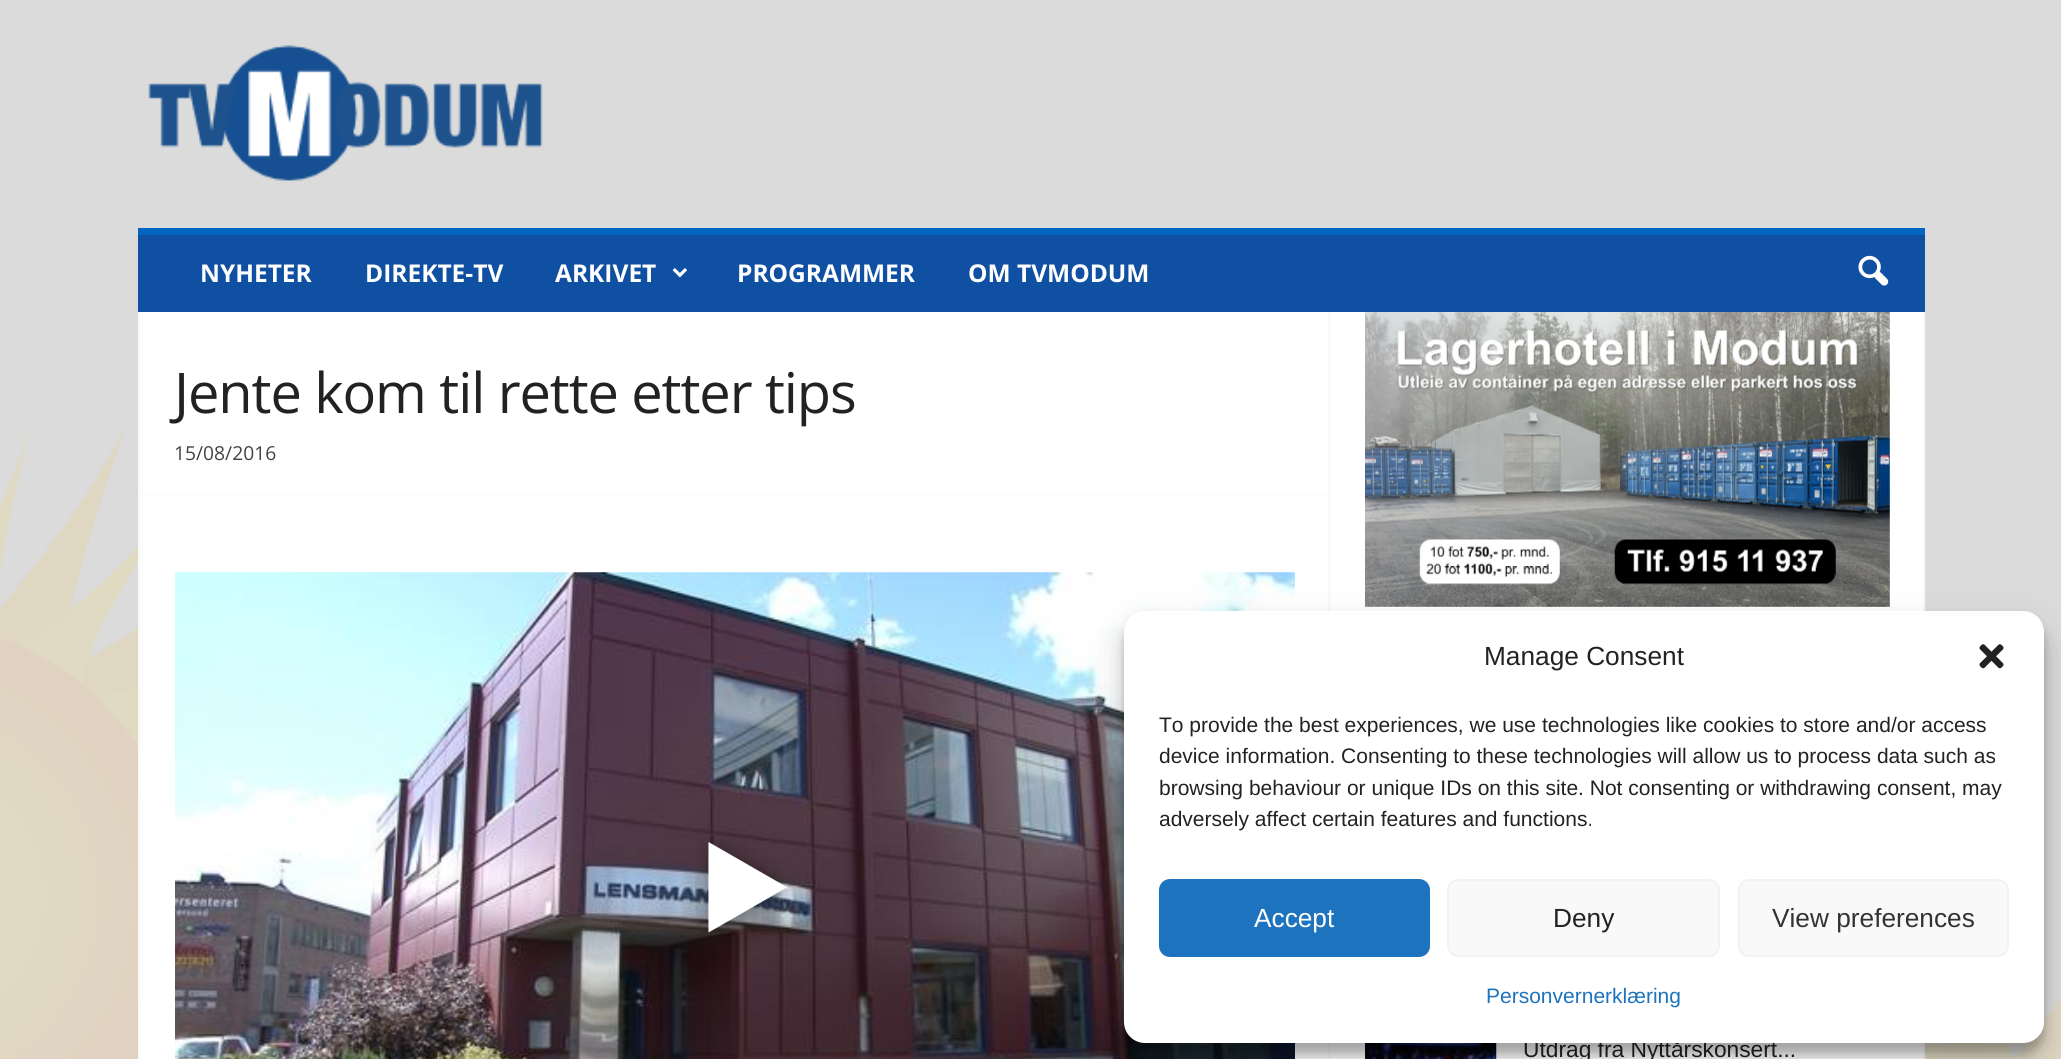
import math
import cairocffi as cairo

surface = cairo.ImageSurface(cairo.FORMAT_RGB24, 2061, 1059)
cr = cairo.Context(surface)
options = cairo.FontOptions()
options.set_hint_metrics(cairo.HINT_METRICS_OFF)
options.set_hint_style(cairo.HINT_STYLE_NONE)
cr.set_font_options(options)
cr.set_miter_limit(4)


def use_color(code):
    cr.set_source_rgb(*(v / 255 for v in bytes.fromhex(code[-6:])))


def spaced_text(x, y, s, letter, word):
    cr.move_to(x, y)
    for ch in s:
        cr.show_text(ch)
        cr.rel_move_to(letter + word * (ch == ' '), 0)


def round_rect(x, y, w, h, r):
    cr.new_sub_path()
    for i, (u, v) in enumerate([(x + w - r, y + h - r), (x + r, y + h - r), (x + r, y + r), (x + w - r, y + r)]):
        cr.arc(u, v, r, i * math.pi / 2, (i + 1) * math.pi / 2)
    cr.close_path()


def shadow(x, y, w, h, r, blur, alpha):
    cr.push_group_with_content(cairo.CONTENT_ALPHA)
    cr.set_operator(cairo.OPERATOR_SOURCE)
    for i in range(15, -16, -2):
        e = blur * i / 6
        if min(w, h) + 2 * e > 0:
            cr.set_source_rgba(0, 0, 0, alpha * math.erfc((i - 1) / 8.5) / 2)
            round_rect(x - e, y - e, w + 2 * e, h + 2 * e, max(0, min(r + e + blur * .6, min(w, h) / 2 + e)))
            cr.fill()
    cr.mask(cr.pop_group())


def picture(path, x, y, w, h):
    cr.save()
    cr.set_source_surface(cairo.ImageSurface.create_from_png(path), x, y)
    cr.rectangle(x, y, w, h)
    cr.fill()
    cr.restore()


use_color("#dbdbdb")
cr.paint()
picture("img1.png", 0, 420, 2061, 639)
picture("img2.png", 148, 45, 395, 136)
use_color("#1050a3")
cr.rectangle(138, 235, 1787, 77)
cr.fill()
use_color("#0066bf")
cr.rectangle(138, 228, 1787, 7)
cr.fill()
cr.select_font_face("Open Sans", cairo.FONT_SLANT_NORMAL, cairo.FONT_WEIGHT_BOLD)
cr.set_font_size(24.5)
use_color("#ffffff")
cr.move_to(200, 282)
cr.show_text("NYHETER")
cr.move_to(365, 282)
cr.show_text("DIREKTE-TV")
cr.move_to(555, 282)
cr.show_text("ARKIVET")
picture("img3.png", 672, 268, 15, 10)
cr.move_to(737, 282)
cr.show_text("PROGRAMMER")
cr.move_to(968, 282)
cr.show_text("OM TVMODUM")
picture("img4.png", 1858, 255, 31, 31)
cr.rectangle(140, 312, 1783, 747)
cr.fill()
use_color("#f9f9f9")
cr.rectangle(138, 312, 2, 747)
cr.fill()
cr.select_font_face("Open Sans")
cr.set_font_size(56)
use_color("#222222")
spaced_text(174, 413, "Jente kom til rette etter tips", -1.1, 0)
cr.set_font_size(19.25)
use_color("#444444")
cr.move_to(174, 460)
cr.show_text("15/08/2016")
use_color("#fcfcfc")
cr.rectangle(140, 494, 1188, 2)
cr.fill()
picture("img5.png", 175, 572, 1120, 487)
picture("img6.png", 1113, 635, 11, 19)
picture("img7.png", 695, 838, 99, 95)
use_color("#f9f9f9")
cr.rectangle(1328, 312, 2, 747)
cr.fill()
picture("img8.png", 1365, 312, 525, 295)
picture("img9.png", 1365, 1043, 132, 16)
cr.select_font_face("Liberation Sans")
cr.set_font_size(22.75)
use_color("#222222")
cr.move_to(1523, 1057)
cr.show_text("Utdrag fra Nyttårskonsert...")
use_color("#f9f9f9")
cr.rectangle(1923, 312, 2, 747)
cr.fill()
use_color("#000000")
shadow(1124, 621, 920, 433, 21, 5, 0.23)
shadow(1124, 628, 920, 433, 21, 17.5, 0.19)
use_color("#ffffff")
round_rect(1124, 611, 920, 432, 21)
cr.fill()
cr.set_font_size(26.25)
use_color("#222222")
cr.move_to(1484, 665)
cr.show_text("Manage Consent")
picture("img10.png", 1979, 644, 25, 25)
cr.set_font_size(21)
cr.move_to(1159, 732)
cr.show_text("To provide the best experiences, we use technologies like cookies to store and/or access")
cr.move_to(1159, 763)
cr.show_text("device information. Consenting to these technologies will allow us to process data such as")
cr.move_to(1159, 795)
cr.show_text("browsing behaviour or unique IDs on this site. Not consenting or withdrawing consent, may")
cr.move_to(1159, 826)
cr.show_text("adversely affect certain features and functions.")
use_color("#1e73be")
round_rect(1160, 880, 269, 76, 10)
cr.fill_preserve()
cr.stroke()
cr.set_font_size(26.25)
use_color("#ffffff")
cr.move_to(1254, 927)
cr.show_text("Accept")
use_color("#f9f9f9")
round_rect(1448, 880, 271, 76, 10)
cr.fill_preserve()
use_color("#f2f2f2")
cr.stroke()
use_color("#222222")
cr.move_to(1553, 927)
cr.show_text("Deny")
use_color("#f9f9f9")
round_rect(1739, 880, 269, 76, 10)
cr.fill_preserve()
use_color("#f2f2f2")
cr.stroke()
use_color("#333333")
cr.move_to(1772, 927)
cr.show_text("View preferences")
cr.set_font_size(21)
use_color("#1e73be")
cr.move_to(1486, 1003)
cr.show_text("Personvernerklæring")
surface.write_to_png("result.png")
